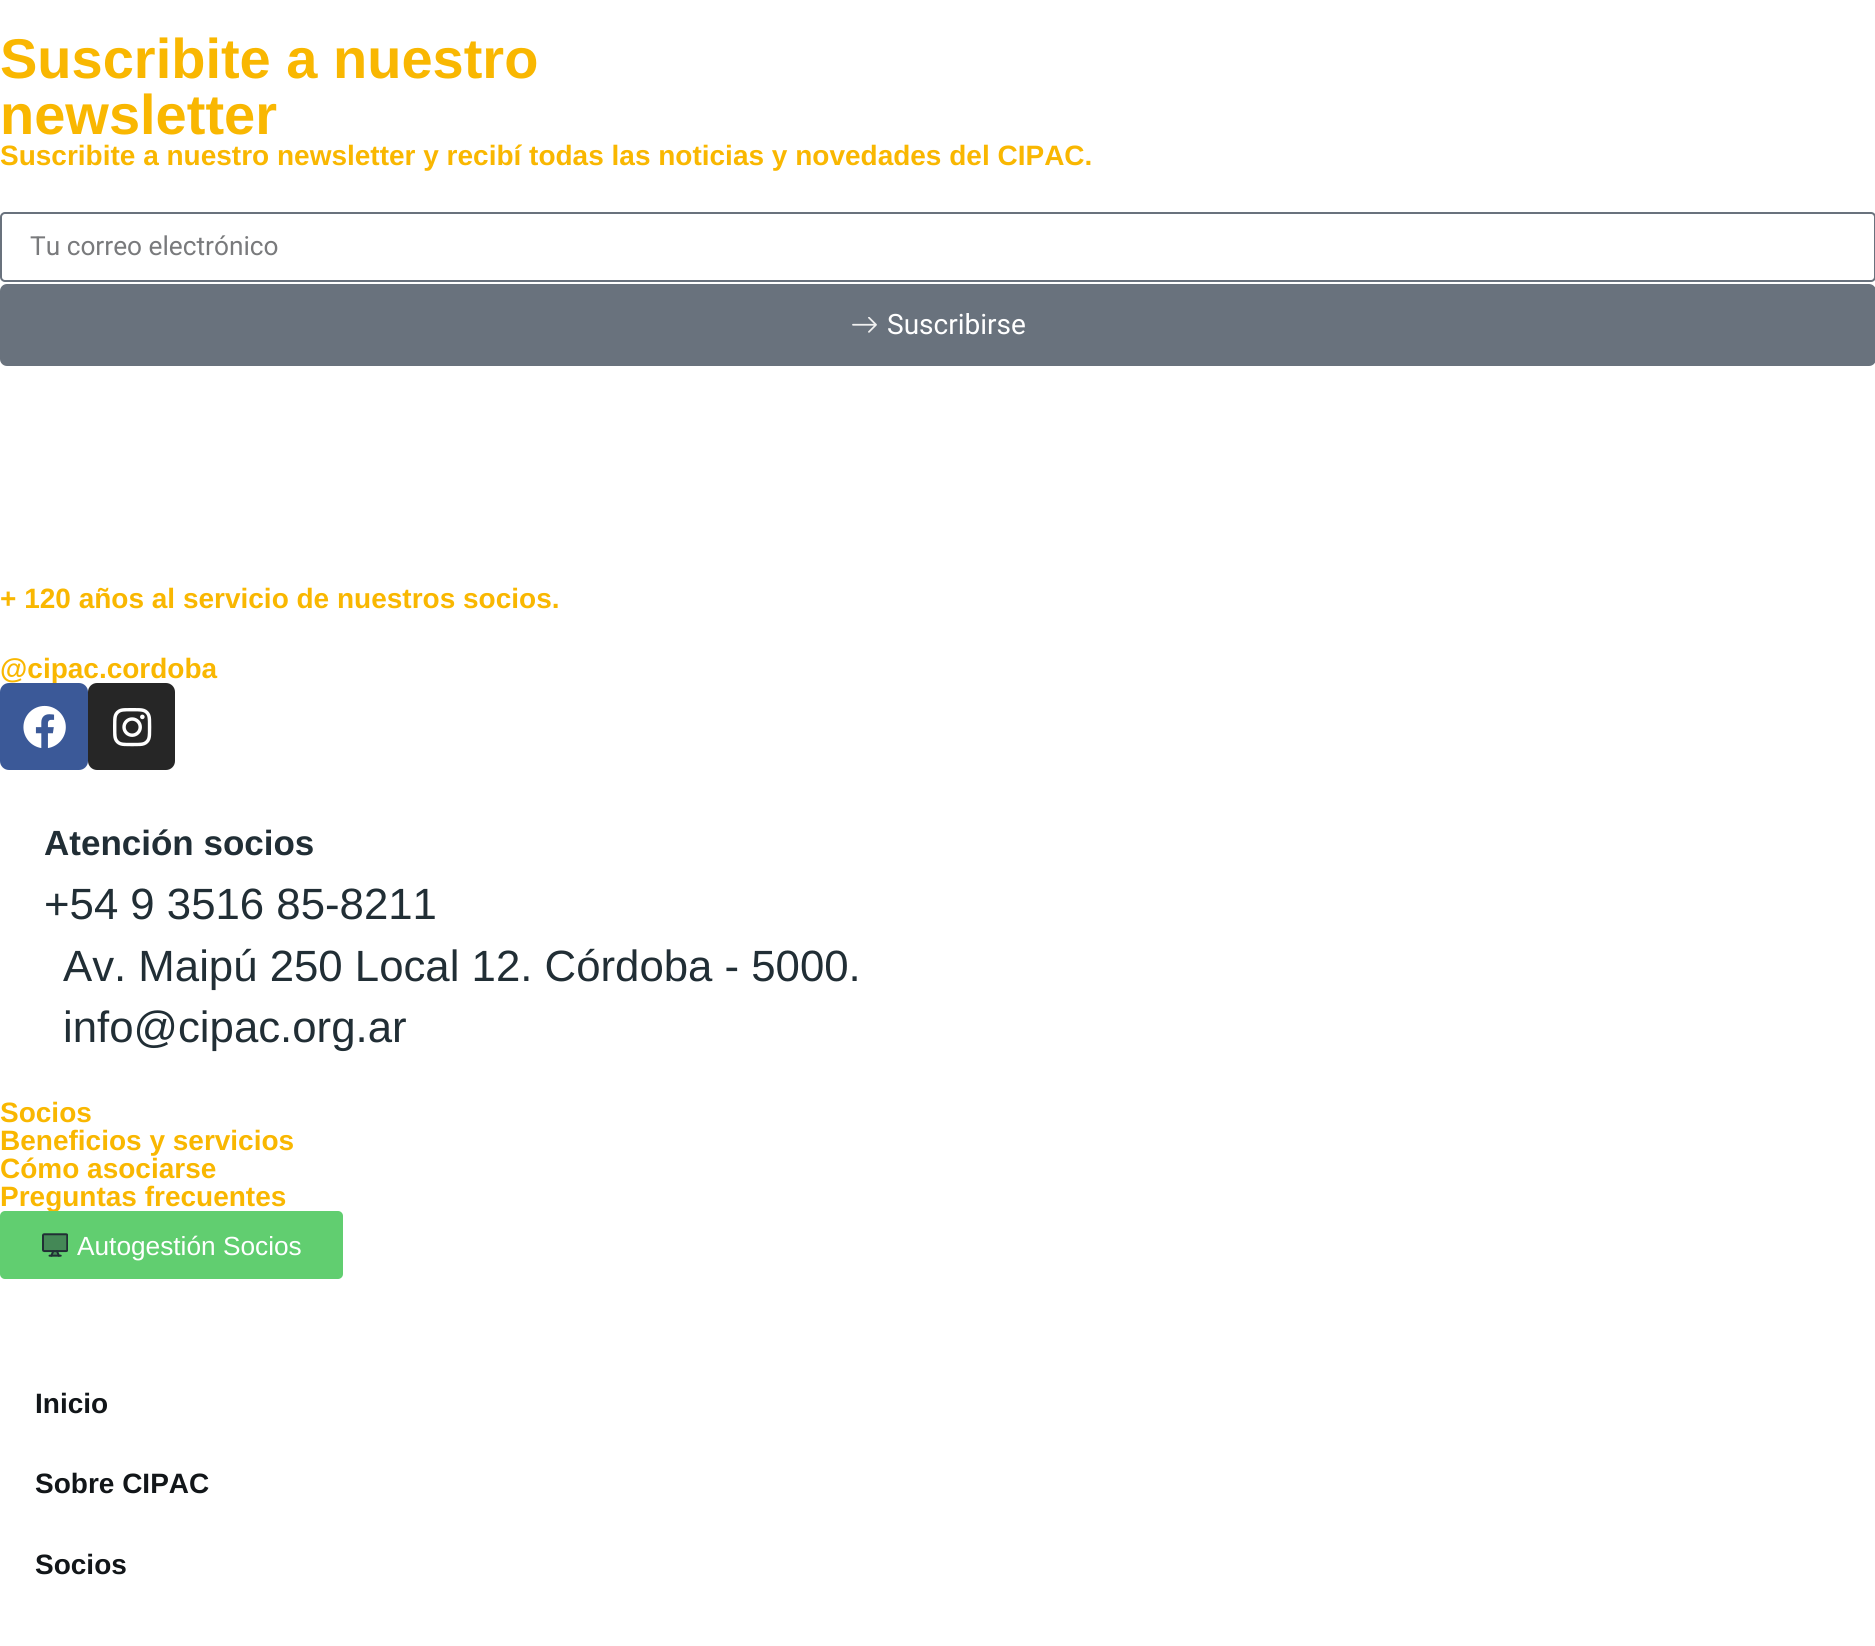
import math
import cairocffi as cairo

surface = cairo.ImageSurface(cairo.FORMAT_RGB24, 1875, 1646)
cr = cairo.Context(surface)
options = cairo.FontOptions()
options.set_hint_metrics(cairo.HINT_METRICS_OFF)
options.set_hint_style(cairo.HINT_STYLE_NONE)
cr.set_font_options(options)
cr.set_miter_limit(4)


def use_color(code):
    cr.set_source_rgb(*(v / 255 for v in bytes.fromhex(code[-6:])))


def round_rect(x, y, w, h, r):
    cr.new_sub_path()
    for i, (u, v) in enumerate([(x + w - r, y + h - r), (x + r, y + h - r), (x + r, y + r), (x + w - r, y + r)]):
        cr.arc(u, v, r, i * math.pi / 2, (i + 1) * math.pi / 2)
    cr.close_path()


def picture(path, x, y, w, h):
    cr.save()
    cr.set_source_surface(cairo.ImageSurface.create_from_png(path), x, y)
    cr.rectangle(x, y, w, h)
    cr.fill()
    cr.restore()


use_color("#ffffff")
cr.paint()
cr.select_font_face("Liberation Sans", cairo.FONT_SLANT_NORMAL, cairo.FONT_WEIGHT_BOLD)
cr.set_font_size(56)
use_color("#f9b701")
cr.move_to(0, 78)
cr.show_text("Suscribite a nuestro")
cr.move_to(0, 134)
cr.show_text("newsletter")
cr.set_font_size(28)
cr.move_to(0, 165)
cr.show_text("Suscribite a nuestro newsletter y recibí todas las noticias y novedades del CIPAC.")
round_rect(1, 213, 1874, 68, 4)
use_color("#69727d")
cr.stroke()
cr.select_font_face("Roboto")
cr.set_font_size(26.25)
use_color("#797a7c")
cr.move_to(30, 255)
cr.show_text("Tu correo electrónico")
use_color("#69727d")
round_rect(0, 284, 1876, 82, 7)
cr.fill()
picture("img1.png", 852, 317, 25, 16)
cr.set_font_size(28)
use_color("#ffffff")
cr.move_to(887, 334)
cr.show_text("Suscribirse")
cr.select_font_face("Liberation Sans", cairo.FONT_SLANT_NORMAL, cairo.FONT_WEIGHT_BOLD)
use_color("#f9b701")
cr.move_to(0, 608)
cr.show_text("+ 120 años al servicio de nuestros socios.")
cr.move_to(0, 678)
cr.show_text("@cipac.cordoba")
use_color("#3b5998")
round_rect(0, 683, 88, 87, 9)
cr.fill()
picture("img2.png", 23, 705, 43, 43)
use_color("#262626")
round_rect(88, 683, 87, 87, 9)
cr.fill()
picture("img3.png", 113, 708, 39, 39)
cr.set_font_size(35)
use_color("#212e35")
cr.move_to(44, 855)
cr.show_text("Atención socios")
cr.select_font_face("Liberation Sans")
cr.set_font_size(43.75)
cr.move_to(44, 919)
cr.show_text("+54 9 3516 85-8211")
cr.move_to(63, 981)
cr.show_text("Av. Maipú 250 Local 12. Córdoba - 5000.")
cr.move_to(63, 1042)
cr.show_text("info@cipac.org.ar")
cr.select_font_face("Liberation Sans", cairo.FONT_SLANT_NORMAL, cairo.FONT_WEIGHT_BOLD)
cr.set_font_size(28)
use_color("#f9b701")
cr.move_to(0, 1122)
cr.show_text("Socios")
cr.move_to(0, 1150)
cr.show_text("Beneficios y servicios")
cr.move_to(0, 1178)
cr.show_text("Cómo asociarse")
cr.move_to(0, 1206)
cr.show_text("Preguntas frecuentes")
use_color("#61ce70")
round_rect(0, 1211, 343, 68, 5)
cr.fill()
picture("img4.png", 42, 1233, 26, 24)
cr.select_font_face("Liberation Sans")
cr.set_font_size(26.25)
use_color("#ffffff")
cr.move_to(77, 1255)
cr.show_text("Autogestión Socios")
cr.select_font_face("Liberation Sans", cairo.FONT_SLANT_NORMAL, cairo.FONT_WEIGHT_BOLD)
cr.set_font_size(28)
use_color("#121619")
cr.move_to(35, 1413)
cr.show_text("Inicio")
cr.move_to(35, 1493)
cr.show_text("Sobre CIPAC")
cr.move_to(35, 1574)
cr.show_text("Socios")
surface.write_to_png("result.png")
